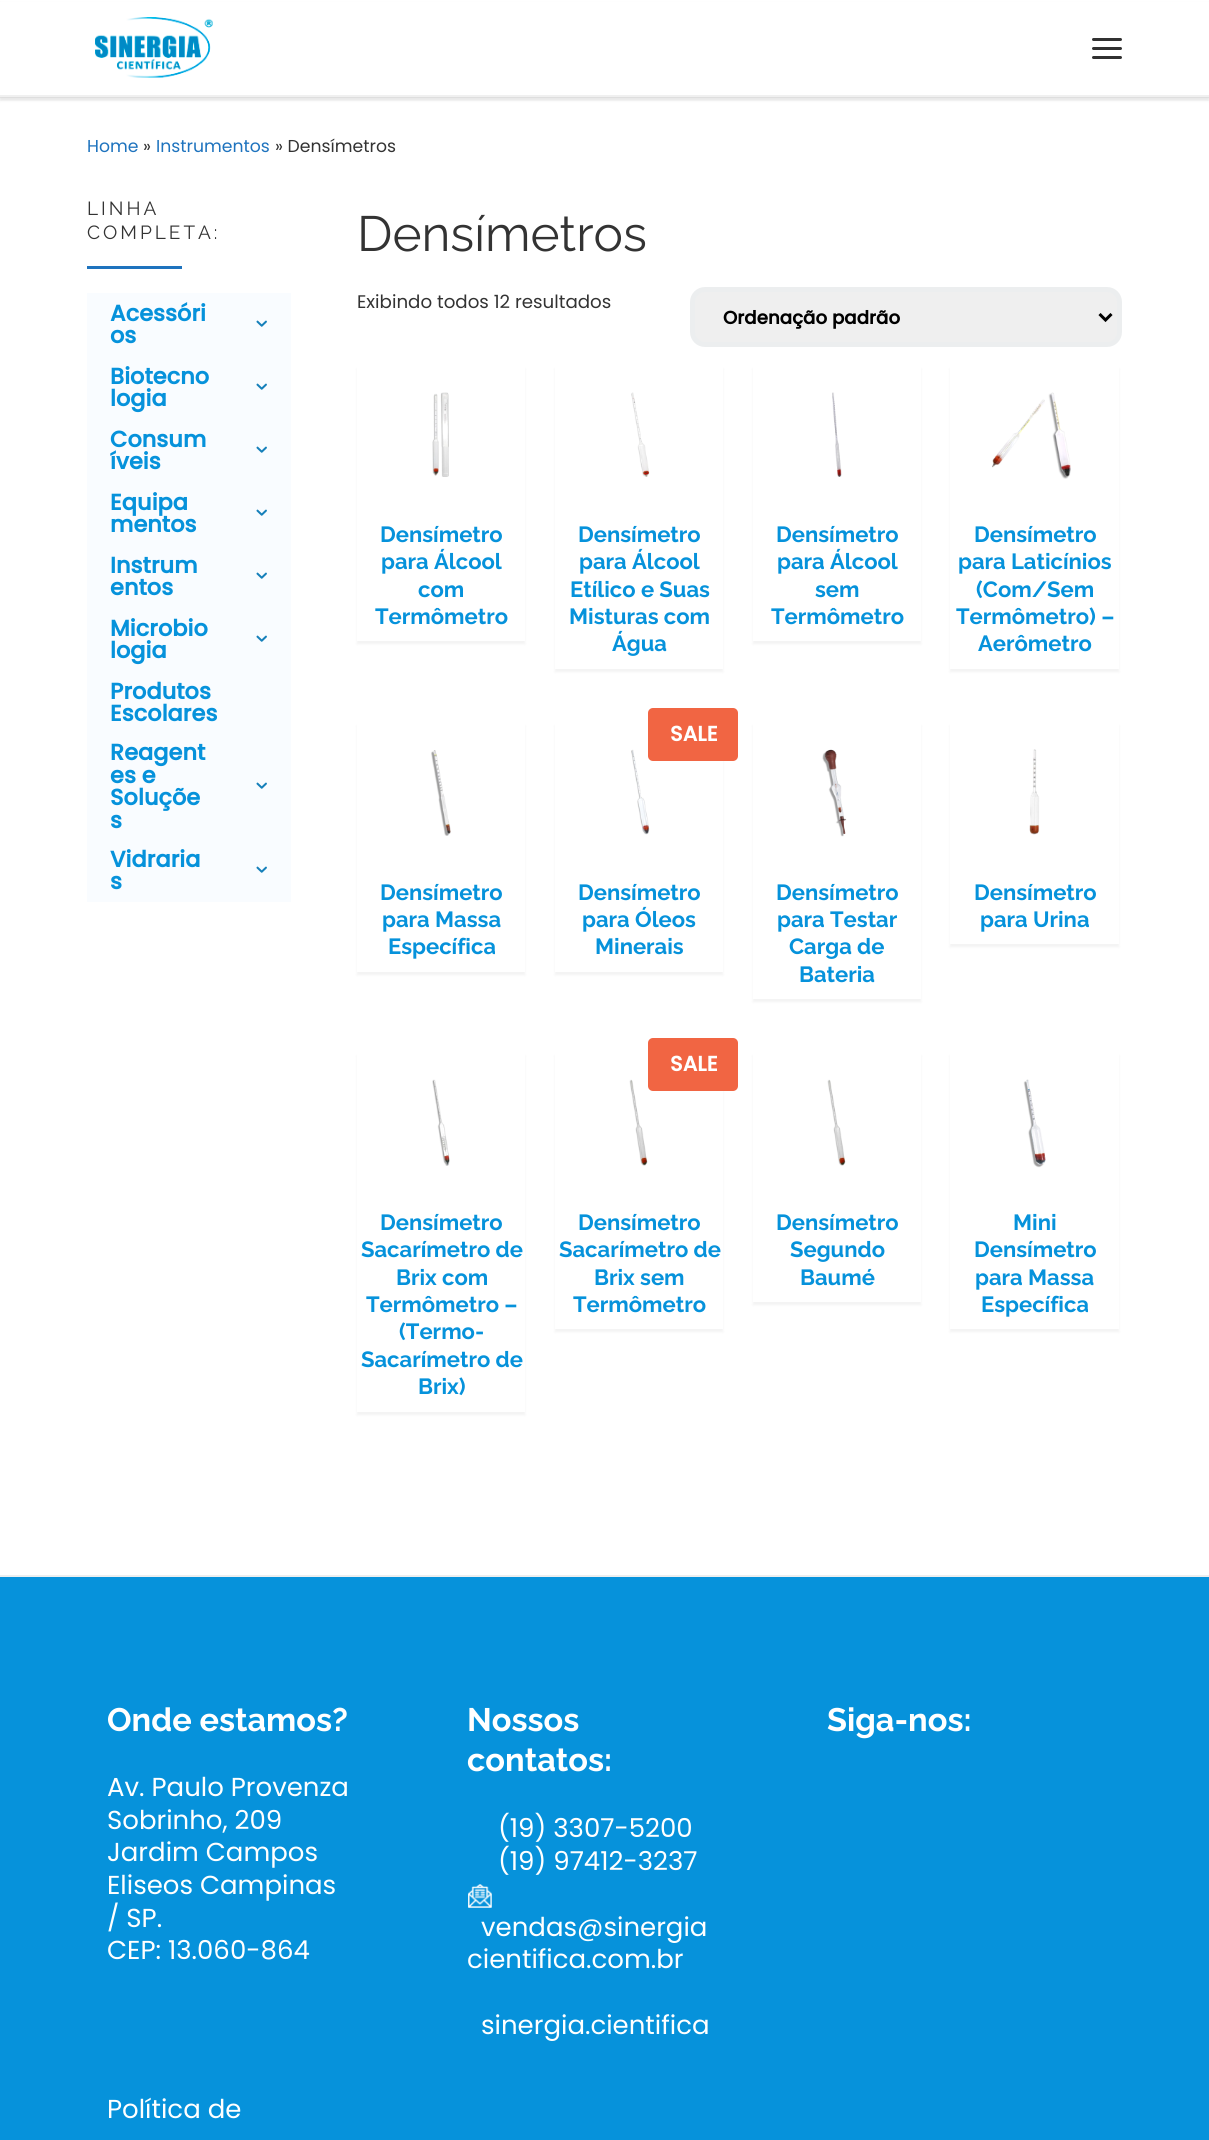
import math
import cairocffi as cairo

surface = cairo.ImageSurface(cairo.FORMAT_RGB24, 1209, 2140)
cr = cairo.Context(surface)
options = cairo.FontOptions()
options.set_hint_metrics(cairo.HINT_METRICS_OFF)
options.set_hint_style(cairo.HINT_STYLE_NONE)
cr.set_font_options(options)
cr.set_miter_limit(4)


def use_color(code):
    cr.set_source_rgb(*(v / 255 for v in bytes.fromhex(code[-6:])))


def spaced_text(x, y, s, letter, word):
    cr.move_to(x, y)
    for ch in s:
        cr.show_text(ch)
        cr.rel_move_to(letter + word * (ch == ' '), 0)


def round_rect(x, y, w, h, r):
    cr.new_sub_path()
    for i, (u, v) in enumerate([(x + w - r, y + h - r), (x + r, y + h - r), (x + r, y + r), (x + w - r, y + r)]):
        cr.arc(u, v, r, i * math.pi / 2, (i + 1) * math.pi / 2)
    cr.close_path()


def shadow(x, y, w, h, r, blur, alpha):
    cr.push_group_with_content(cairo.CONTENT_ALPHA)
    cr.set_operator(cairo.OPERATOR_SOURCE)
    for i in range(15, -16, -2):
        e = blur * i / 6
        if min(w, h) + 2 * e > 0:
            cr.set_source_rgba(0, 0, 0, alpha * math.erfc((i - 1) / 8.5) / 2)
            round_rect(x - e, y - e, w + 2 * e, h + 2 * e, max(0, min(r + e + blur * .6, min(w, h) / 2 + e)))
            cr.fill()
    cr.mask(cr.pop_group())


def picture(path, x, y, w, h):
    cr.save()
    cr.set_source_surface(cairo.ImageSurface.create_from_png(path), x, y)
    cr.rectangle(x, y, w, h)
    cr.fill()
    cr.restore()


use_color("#ffffff")
cr.paint()
use_color("#666666")
shadow(0, 3, 1209, 98, 0, 1.5, 0.08)
use_color("#ffffff")
cr.rectangle(0, 2, 1209, 93)
cr.fill()
use_color("#efefef")
cr.rectangle(0, 97, 1209, 1)
cr.fill()
cr.save()
cr.rectangle(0, 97, 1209, 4)
cr.clip()
use_color("#000000")
shadow(0, 0, 1209, 96, 0, 4, 0.2)
cr.restore()
picture("img1.png", 95, 17, 118, 61)
use_color("#313131")
round_rect(1092, 38, 30, 3, 1.5)
cr.fill()
round_rect(1092, 47, 30, 3, 1.5)
cr.fill()
round_rect(1092, 56, 30, 3, 1.5)
cr.fill()
use_color("#f0f0f0")
cr.rectangle(0, 95, 1209, 2)
cr.fill()
cr.select_font_face("Poppins")
cr.set_font_size(17.25)
use_color("#1e73be")
cr.move_to(87, 152)
cr.show_text("Home")
use_color("#333333")
cr.move_to(143, 152)
cr.show_text("»")
use_color("#1e73be")
cr.move_to(156, 152)
cr.show_text("Instrumentos")
use_color("#333333")
cr.move_to(275, 152)
cr.show_text("» Densímetros")
cr.select_font_face("Raleway")
cr.set_font_size(19)
spaced_text(87, 215, "LINHA", 3, 0)
spaced_text(87, 239, "COMPLETA:", 3, 0)
use_color("#1e73be")
cr.rectangle(87, 266, 95, 3)
cr.fill()
use_color("#f9fcff")
cr.rectangle(87, 293, 204, 609)
cr.fill()
cr.select_font_face("Poppins", cairo.FONT_SLANT_NORMAL, cairo.FONT_WEIGHT_BOLD)
cr.set_font_size(22.5)
use_color("#0692db")
cr.move_to(110, 321)
cr.show_text("Acessóri")
cr.move_to(110, 343)
cr.show_text("os")
picture("img2.png", 256, 320, 11, 7)
cr.move_to(110, 384)
cr.show_text("Biotecno")
cr.move_to(110, 406)
cr.show_text("logia")
picture("img2.png", 256, 383, 11, 7)
cr.move_to(110, 447)
cr.show_text("Consum")
cr.move_to(110, 469)
cr.show_text("íveis")
picture("img2.png", 256, 446, 11, 7)
cr.move_to(110, 510)
cr.show_text("Equipa")
cr.move_to(110, 532)
cr.show_text("mentos")
picture("img2.png", 256, 509, 11, 7)
cr.move_to(110, 573)
cr.show_text("Instrum")
cr.move_to(110, 595)
cr.show_text("entos")
picture("img2.png", 256, 572, 11, 7)
cr.move_to(110, 636)
cr.show_text("Microbio")
cr.move_to(110, 658)
cr.show_text("logia")
picture("img2.png", 256, 635, 11, 7)
cr.move_to(110, 699)
cr.show_text("Produtos")
cr.move_to(110, 721)
cr.show_text("Escolares")
cr.move_to(110, 760)
cr.show_text("Reagent")
cr.move_to(110, 783)
cr.show_text("es e")
cr.move_to(110, 805)
cr.show_text("Soluçõe")
cr.move_to(110, 828)
cr.show_text("s")
picture("img2.png", 256, 782, 11, 7)
cr.move_to(110, 867)
cr.show_text("Vidraria")
cr.move_to(110, 889)
cr.show_text("s")
picture("img2.png", 256, 866, 11, 7)
cr.select_font_face("Raleway")
cr.set_font_size(49.5)
use_color("#333333")
cr.move_to(357, 251)
cr.show_text("Densímetros")
cr.select_font_face("Poppins")
cr.set_font_size(18.25)
cr.move_to(357, 308)
cr.show_text("Exibindo todos 12 resultados")
use_color("#efefef")
round_rect(692.5, 289.5, 427, 55, 12.5)
cr.fill_preserve()
use_color("#eceeef")
cr.set_line_width(5)
cr.stroke()
cr.new_path()
cr.move_to(1099.5, 314)
cr.line_to(1105.5, 320)
cr.line_to(1111.5, 314)
use_color("#000000")
cr.set_line_width(3)
cr.stroke()
cr.select_font_face("Poppins", cairo.FONT_SLANT_NORMAL, cairo.FONT_WEIGHT_BOLD)
cr.move_to(723, 324)
cr.show_text("Ordenação padrão")
cr.save()
cr.set_fill_rule(cairo.FILL_RULE_EVEN_ODD)
cr.new_path()
cr.move_to(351, 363)
cr.line_to(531, 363)
cr.line_to(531, 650)
cr.line_to(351, 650)
cr.close_path()
cr.move_to(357, 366)
cr.line_to(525, 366)
cr.line_to(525, 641)
cr.line_to(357, 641)
cr.close_path()
cr.clip()
use_color("#666666")
shadow(357, 369, 168, 275, 0, 1.5, 0.08)
cr.restore()
picture("img3.png", 432, 392, 17, 85)
cr.select_font_face("Raleway", cairo.FONT_SLANT_NORMAL, cairo.FONT_WEIGHT_BOLD)
cr.set_font_size(22)
use_color("#0692db")
cr.move_to(380, 542)
cr.show_text("Densímetro")
cr.move_to(381, 569)
cr.show_text("para Álcool")
cr.move_to(418, 597)
cr.show_text("com")
cr.move_to(375, 624)
cr.show_text("Termômetro")
cr.save()
cr.set_fill_rule(cairo.FILL_RULE_EVEN_ODD)
cr.new_path()
cr.move_to(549, 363)
cr.line_to(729, 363)
cr.line_to(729, 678)
cr.line_to(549, 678)
cr.close_path()
cr.move_to(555, 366)
cr.line_to(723, 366)
cr.line_to(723, 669)
cr.line_to(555, 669)
cr.close_path()
cr.clip()
use_color("#666666")
shadow(555, 369, 168, 303, 0, 1.5, 0.08)
cr.restore()
picture("img4.png", 631, 392, 19, 85)
cr.move_to(578, 542)
cr.show_text("Densímetro")
cr.move_to(579, 569)
cr.show_text("para Álcool")
cr.move_to(570, 597)
cr.show_text("Etílico e Suas")
cr.move_to(569, 624)
cr.show_text("Misturas com")
cr.move_to(612, 651)
cr.show_text("Água")
cr.save()
cr.set_fill_rule(cairo.FILL_RULE_EVEN_ODD)
cr.new_path()
cr.move_to(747, 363)
cr.line_to(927, 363)
cr.line_to(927, 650)
cr.line_to(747, 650)
cr.close_path()
cr.move_to(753, 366)
cr.line_to(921, 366)
cr.line_to(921, 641)
cr.line_to(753, 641)
cr.close_path()
cr.clip()
use_color("#666666")
shadow(753, 369, 168, 275, 0, 1.5, 0.08)
cr.restore()
picture("img5.png", 832, 392, 10, 85)
cr.move_to(776, 542)
cr.show_text("Densímetro")
cr.move_to(777, 569)
cr.show_text("para Álcool")
cr.move_to(815, 597)
cr.show_text("sem")
cr.move_to(771, 624)
cr.show_text("Termômetro")
cr.save()
cr.set_fill_rule(cairo.FILL_RULE_EVEN_ODD)
cr.new_path()
cr.move_to(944, 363)
cr.line_to(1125, 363)
cr.line_to(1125, 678)
cr.line_to(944, 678)
cr.close_path()
cr.move_to(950, 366)
cr.line_to(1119, 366)
cr.line_to(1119, 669)
cr.line_to(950, 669)
cr.close_path()
cr.clip()
use_color("#666666")
shadow(950, 369, 169, 303, 0, 1.5, 0.08)
cr.restore()
picture("img6.png", 992, 392, 79, 87)
cr.move_to(974, 542)
cr.show_text("Densímetro")
cr.move_to(958, 569)
cr.show_text("para Laticínios")
cr.move_to(976, 597)
cr.show_text("(Com/Sem")
cr.move_to(956, 624)
cr.show_text("Termômetro) –")
cr.move_to(978, 651)
cr.show_text("Aerômetro")
cr.save()
cr.set_fill_rule(cairo.FILL_RULE_EVEN_ODD)
cr.new_path()
cr.move_to(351, 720)
cr.line_to(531, 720)
cr.line_to(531, 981)
cr.line_to(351, 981)
cr.close_path()
cr.move_to(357, 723)
cr.line_to(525, 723)
cr.line_to(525, 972)
cr.line_to(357, 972)
cr.close_path()
cr.clip()
use_color("#666666")
shadow(357, 726, 168, 249, 0, 1.5, 0.08)
cr.restore()
picture("img7.png", 431, 750, 20, 86)
cr.move_to(380, 900)
cr.show_text("Densímetro")
cr.move_to(382, 927)
cr.show_text("para Massa")
cr.move_to(388, 954)
cr.show_text("Específica")
cr.save()
cr.set_fill_rule(cairo.FILL_RULE_EVEN_ODD)
cr.new_path()
cr.move_to(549, 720)
cr.line_to(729, 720)
cr.line_to(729, 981)
cr.line_to(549, 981)
cr.close_path()
cr.move_to(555, 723)
cr.line_to(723, 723)
cr.line_to(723, 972)
cr.line_to(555, 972)
cr.close_path()
cr.clip()
use_color("#666666")
shadow(555, 726, 168, 249, 0, 1.5, 0.08)
cr.restore()
picture("img8.png", 631, 749, 19, 86)
use_color("#f16543")
round_rect(648, 708, 90, 53, 5)
cr.fill()
cr.select_font_face("Poppins", cairo.FONT_SLANT_NORMAL, cairo.FONT_WEIGHT_BOLD)
cr.set_font_size(21)
use_color("#ffffff")
cr.move_to(670, 741)
cr.show_text("SALE")
cr.select_font_face("Raleway", cairo.FONT_SLANT_NORMAL, cairo.FONT_WEIGHT_BOLD)
cr.set_font_size(22)
use_color("#0692db")
cr.move_to(578, 900)
cr.show_text("Densímetro")
cr.move_to(582, 927)
cr.show_text("para Óleos")
cr.move_to(595, 954)
cr.show_text("Minerais")
cr.save()
cr.set_fill_rule(cairo.FILL_RULE_EVEN_ODD)
cr.new_path()
cr.move_to(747, 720)
cr.line_to(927, 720)
cr.line_to(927, 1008)
cr.line_to(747, 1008)
cr.close_path()
cr.move_to(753, 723)
cr.line_to(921, 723)
cr.line_to(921, 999)
cr.line_to(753, 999)
cr.close_path()
cr.clip()
use_color("#666666")
shadow(753, 726, 168, 276, 0, 1.5, 0.08)
cr.restore()
picture("img9.png", 822, 749, 25, 88)
cr.move_to(776, 900)
cr.show_text("Densímetro")
cr.move_to(777, 927)
cr.show_text("para Testar")
cr.move_to(789, 954)
cr.show_text("Carga de")
cr.move_to(799, 982)
cr.show_text("Bateria")
cr.save()
cr.set_fill_rule(cairo.FILL_RULE_EVEN_ODD)
cr.new_path()
cr.move_to(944, 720)
cr.line_to(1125, 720)
cr.line_to(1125, 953)
cr.line_to(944, 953)
cr.close_path()
cr.move_to(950, 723)
cr.line_to(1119, 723)
cr.line_to(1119, 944)
cr.line_to(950, 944)
cr.close_path()
cr.clip()
use_color("#666666")
shadow(950, 726, 169, 221, 0, 1.5, 0.08)
cr.restore()
picture("img10.png", 1029, 749, 11, 86)
cr.move_to(974, 900)
cr.show_text("Densímetro")
cr.move_to(980, 927)
cr.show_text("para Urina")
cr.save()
cr.set_fill_rule(cairo.FILL_RULE_EVEN_ODD)
cr.new_path()
cr.move_to(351, 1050)
cr.line_to(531, 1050)
cr.line_to(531, 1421)
cr.line_to(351, 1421)
cr.close_path()
cr.move_to(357, 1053)
cr.line_to(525, 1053)
cr.line_to(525, 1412)
cr.line_to(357, 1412)
cr.close_path()
cr.clip()
use_color("#666666")
shadow(357, 1056, 168, 359, 0, 1.5, 0.08)
cr.restore()
picture("img11.png", 432, 1079, 18, 87)
cr.move_to(380, 1230)
cr.show_text("Densímetro")
cr.move_to(361, 1257)
cr.show_text("Sacarímetro de")
cr.move_to(396, 1285)
cr.show_text("Brix com")
cr.move_to(366, 1312)
cr.show_text("Termômetro –")
cr.move_to(399, 1339)
cr.show_text("(Termo-")
cr.move_to(361, 1367)
cr.show_text("Sacarímetro de")
cr.move_to(418, 1394)
cr.show_text("Brix)")
cr.save()
cr.set_fill_rule(cairo.FILL_RULE_EVEN_ODD)
cr.new_path()
cr.move_to(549, 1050)
cr.line_to(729, 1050)
cr.line_to(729, 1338)
cr.line_to(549, 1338)
cr.close_path()
cr.move_to(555, 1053)
cr.line_to(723, 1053)
cr.line_to(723, 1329)
cr.line_to(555, 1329)
cr.close_path()
cr.clip()
use_color("#666666")
shadow(555, 1056, 168, 276, 0, 1.5, 0.08)
cr.restore()
use_color("#f16543")
round_rect(648, 1038, 90, 53, 5)
cr.fill()
cr.select_font_face("Poppins", cairo.FONT_SLANT_NORMAL, cairo.FONT_WEIGHT_BOLD)
cr.set_font_size(21)
use_color("#ffffff")
cr.move_to(670, 1071)
cr.show_text("SALE")
picture("img12.png", 629, 1079, 19, 87)
cr.select_font_face("Raleway", cairo.FONT_SLANT_NORMAL, cairo.FONT_WEIGHT_BOLD)
cr.set_font_size(22)
use_color("#0692db")
cr.move_to(578, 1230)
cr.show_text("Densímetro")
cr.move_to(559, 1257)
cr.show_text("Sacarímetro de")
cr.move_to(594, 1285)
cr.show_text("Brix sem")
cr.move_to(573, 1312)
cr.show_text("Termômetro")
cr.save()
cr.set_fill_rule(cairo.FILL_RULE_EVEN_ODD)
cr.new_path()
cr.move_to(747, 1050)
cr.line_to(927, 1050)
cr.line_to(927, 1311)
cr.line_to(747, 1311)
cr.close_path()
cr.move_to(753, 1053)
cr.line_to(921, 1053)
cr.line_to(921, 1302)
cr.line_to(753, 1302)
cr.close_path()
cr.clip()
use_color("#666666")
shadow(753, 1056, 168, 249, 0, 1.5, 0.08)
cr.restore()
picture("img12.png", 827, 1079, 19, 87)
cr.move_to(776, 1230)
cr.show_text("Densímetro")
cr.move_to(790, 1257)
cr.show_text("Segundo")
cr.move_to(800, 1285)
cr.show_text("Baumé")
cr.save()
cr.set_fill_rule(cairo.FILL_RULE_EVEN_ODD)
cr.new_path()
cr.move_to(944, 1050)
cr.line_to(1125, 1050)
cr.line_to(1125, 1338)
cr.line_to(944, 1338)
cr.close_path()
cr.move_to(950, 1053)
cr.line_to(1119, 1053)
cr.line_to(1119, 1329)
cr.line_to(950, 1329)
cr.close_path()
cr.clip()
use_color("#666666")
shadow(950, 1056, 169, 276, 0, 1.5, 0.08)
cr.restore()
picture("img13.png", 1023, 1079, 23, 89)
cr.move_to(1013, 1230)
cr.show_text("Mini")
cr.move_to(974, 1257)
cr.show_text("Densímetro")
cr.move_to(975, 1285)
cr.show_text("para Massa")
cr.move_to(981, 1312)
cr.show_text("Específica")
cr.rectangle(0, 1577, 1209, 563)
cr.fill()
use_color("#eceeef")
cr.rectangle(0, 1575, 1209, 2)
cr.fill()
cr.set_font_size(32.5)
use_color("#ffffff")
cr.move_to(107, 1731)
cr.show_text("Onde estamos?")
cr.select_font_face("Poppins")
cr.set_font_size(26)
cr.move_to(107, 1796)
cr.show_text("Av. Paulo Provenza")
cr.move_to(107, 1829)
cr.show_text("Sobrinho, 209")
cr.move_to(107, 1861)
cr.show_text("Jardim Campos")
cr.move_to(107, 1894)
cr.show_text("Eliseos Campinas")
cr.move_to(107, 1927)
cr.show_text("/ SP.")
cr.move_to(107, 1959)
cr.show_text("CEP: 13.060-864")
cr.move_to(107, 2118)
cr.show_text("Política de")
cr.select_font_face("Raleway", cairo.FONT_SLANT_NORMAL, cairo.FONT_WEIGHT_BOLD)
cr.set_font_size(32.5)
cr.move_to(467, 1731)
cr.show_text("Nossos")
cr.move_to(467, 1771)
cr.show_text("contatos:")
cr.select_font_face("Poppins")
cr.set_font_size(26)
cr.move_to(498, 1837)
cr.show_text("(19) 3307-5200")
cr.move_to(498, 1870)
cr.show_text("(19) 97412-3237")
picture("img14.png", 468, 1884, 24, 24)
cr.move_to(481, 1936)
cr.show_text("vendas@sinergia")
cr.move_to(467, 1968)
cr.show_text("cientifica.com.br")
cr.move_to(481, 2034)
cr.show_text("sinergia.cientifica")
cr.select_font_face("Raleway", cairo.FONT_SLANT_NORMAL, cairo.FONT_WEIGHT_BOLD)
cr.set_font_size(32.5)
cr.move_to(827, 1731)
cr.show_text("Siga-nos:")
surface.write_to_png("result.png")
